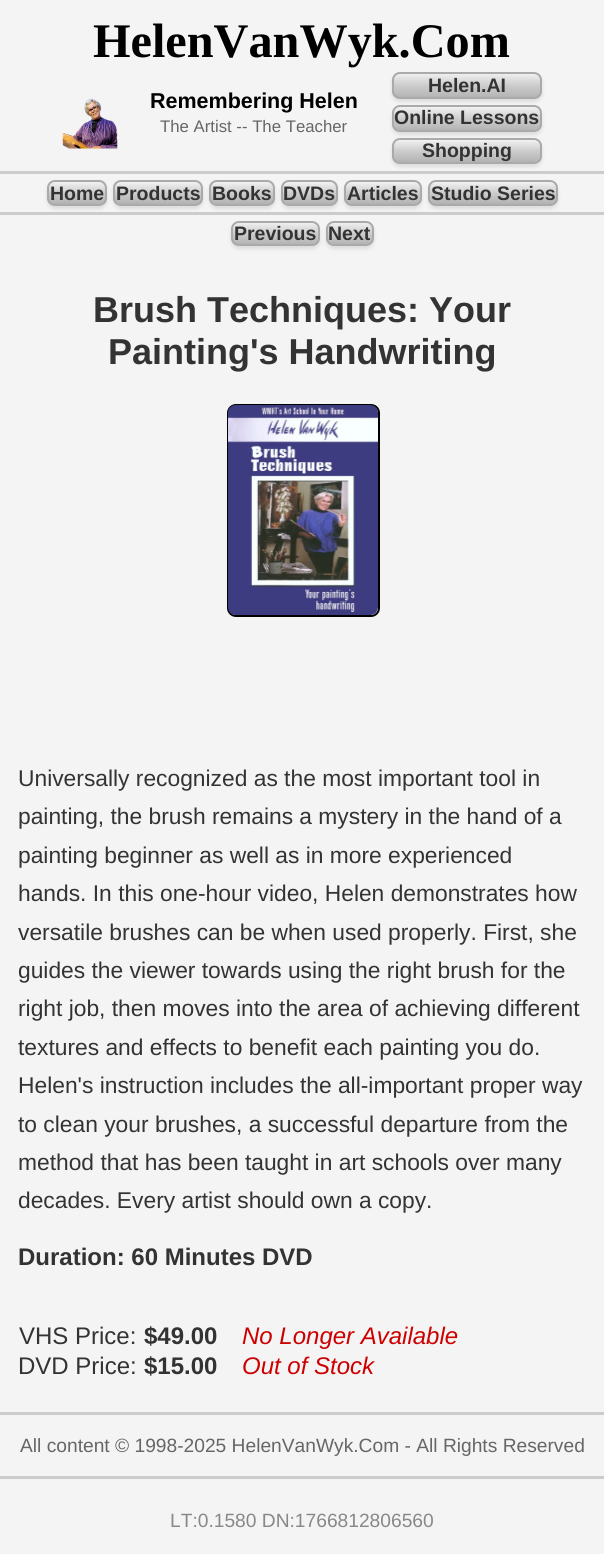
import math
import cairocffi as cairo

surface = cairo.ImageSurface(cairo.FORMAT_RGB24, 604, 1554)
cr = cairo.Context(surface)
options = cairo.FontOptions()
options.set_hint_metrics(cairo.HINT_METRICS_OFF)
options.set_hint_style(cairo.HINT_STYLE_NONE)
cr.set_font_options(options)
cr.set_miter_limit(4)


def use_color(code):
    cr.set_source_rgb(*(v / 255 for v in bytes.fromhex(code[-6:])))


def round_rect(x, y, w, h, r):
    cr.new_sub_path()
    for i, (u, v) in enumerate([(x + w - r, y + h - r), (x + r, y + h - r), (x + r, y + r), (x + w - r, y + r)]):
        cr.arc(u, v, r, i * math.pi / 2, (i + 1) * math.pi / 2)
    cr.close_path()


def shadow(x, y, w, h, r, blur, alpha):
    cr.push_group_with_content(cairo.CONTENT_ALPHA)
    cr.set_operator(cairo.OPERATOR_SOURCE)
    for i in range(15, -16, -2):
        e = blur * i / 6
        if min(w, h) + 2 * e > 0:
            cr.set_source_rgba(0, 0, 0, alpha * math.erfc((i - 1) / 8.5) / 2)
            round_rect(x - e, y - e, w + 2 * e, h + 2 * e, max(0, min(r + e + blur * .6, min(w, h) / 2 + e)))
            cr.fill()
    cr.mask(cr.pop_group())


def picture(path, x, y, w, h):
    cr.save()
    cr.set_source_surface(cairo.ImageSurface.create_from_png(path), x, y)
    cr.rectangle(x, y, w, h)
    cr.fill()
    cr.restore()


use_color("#f4f4f4")
cr.paint()
cr.select_font_face("Liberation Serif", cairo.FONT_SLANT_NORMAL, cairo.FONT_WEIGHT_BOLD)
cr.set_font_size(48.25)
use_color("#000000")
cr.move_to(93, 57)
cr.show_text("HelenVanWyk.Com")
picture("img1.png", 62, 98, 56, 51)
cr.select_font_face("Liberation Sans", cairo.FONT_SLANT_NORMAL, cairo.FONT_WEIGHT_BOLD)
cr.set_font_size(21.5)
cr.move_to(150, 108)
cr.show_text("Remembering Helen")
cr.select_font_face("Liberation Sans")
cr.set_font_size(16.75)
use_color("#666666")
cr.move_to(160, 132)
cr.show_text("The Artist -- The Teacher")
use_color("#000000")
shadow(392, 75, 150, 27, 8, 2, 0.1)
cr.save()
round_rect(392, 72, 150, 27, 8)
cr.clip()
gradient = cairo.LinearGradient(467, 73, 467, 98)
gradient.add_color_stop_rgba(0, 0.949, 0.949, 0.949, 1)
gradient.add_color_stop_rgba(0.5, 0.8, 0.8, 0.8, 1)
gradient.add_color_stop_rgba(1, 0.702, 0.702, 0.702, 1)
cr.set_source(gradient)
cr.rectangle(392, 74, 150, 24)
cr.fill()
cr.restore()
round_rect(393, 73, 148, 25, 7)
use_color("#aaaaaa")
cr.stroke()
cr.select_font_face("Liberation Sans", cairo.FONT_SLANT_NORMAL, cairo.FONT_WEIGHT_BOLD)
cr.set_font_size(19.5)
use_color("#333333")
cr.move_to(428, 92)
cr.show_text("Helen.AI")
use_color("#000000")
shadow(392, 108, 150, 27, 8, 2, 0.1)
cr.save()
round_rect(392, 105, 150, 27, 8)
cr.clip()
gradient = cairo.LinearGradient(467, 107, 467, 131)
gradient.add_color_stop_rgba(0, 0.949, 0.949, 0.949, 1)
gradient.add_color_stop_rgba(0.5, 0.8, 0.8, 0.8, 1)
gradient.add_color_stop_rgba(1, 0.702, 0.702, 0.702, 1)
cr.set_source(gradient)
cr.rectangle(392, 107, 150, 24)
cr.fill()
cr.restore()
round_rect(393, 106, 148, 25, 7)
use_color("#aaaaaa")
cr.stroke()
use_color("#333333")
cr.move_to(394, 124)
cr.show_text("Online Lessons")
use_color("#000000")
shadow(392, 141, 150, 26, 8, 2, 0.1)
cr.save()
round_rect(392, 138, 150, 26, 8)
cr.clip()
gradient = cairo.LinearGradient(467, 140, 467, 162)
gradient.add_color_stop_rgba(0, 0.949, 0.949, 0.949, 1)
gradient.add_color_stop_rgba(0.5, 0.8, 0.8, 0.8, 1)
gradient.add_color_stop_rgba(1, 0.702, 0.702, 0.702, 1)
cr.set_source(gradient)
cr.rectangle(392, 140, 150, 22)
cr.fill()
cr.restore()
round_rect(393, 139, 148, 24, 7)
use_color("#aaaaaa")
cr.stroke()
use_color("#333333")
cr.move_to(422, 157)
cr.show_text("Shopping")
use_color("#cccccc")
cr.rectangle(0, 171, 604, 3)
cr.fill()
use_color("#000000")
shadow(47, 183, 60, 26, 8, 2, 0.1)
cr.save()
round_rect(47, 180, 60, 26, 8)
cr.clip()
gradient = cairo.LinearGradient(77, 182, 77, 204)
gradient.add_color_stop_rgba(0, 0.949, 0.949, 0.949, 1)
gradient.add_color_stop_rgba(0.5, 0.8, 0.8, 0.8, 1)
gradient.add_color_stop_rgba(1, 0.702, 0.702, 0.702, 1)
cr.set_source(gradient)
cr.rectangle(47, 182, 60, 22)
cr.fill()
cr.restore()
round_rect(48, 181, 58, 24, 7)
use_color("#aaaaaa")
cr.stroke()
use_color("#333333")
cr.move_to(50, 200)
cr.show_text("Home")
use_color("#000000")
shadow(113, 183, 90, 26, 8, 2, 0.1)
cr.save()
round_rect(113, 180, 90, 26, 8)
cr.clip()
gradient = cairo.LinearGradient(158, 182, 158, 204)
gradient.add_color_stop_rgba(0, 0.949, 0.949, 0.949, 1)
gradient.add_color_stop_rgba(0.5, 0.8, 0.8, 0.8, 1)
gradient.add_color_stop_rgba(1, 0.702, 0.702, 0.702, 1)
cr.set_source(gradient)
cr.rectangle(113, 182, 90, 22)
cr.fill()
cr.restore()
round_rect(114, 181, 88, 24, 7)
use_color("#aaaaaa")
cr.stroke()
use_color("#333333")
cr.move_to(116, 200)
cr.show_text("Products")
use_color("#000000")
shadow(209, 183, 66, 26, 8, 2, 0.1)
cr.save()
round_rect(209, 180, 66, 26, 8)
cr.clip()
gradient = cairo.LinearGradient(242, 182, 242, 204)
gradient.add_color_stop_rgba(0, 0.949, 0.949, 0.949, 1)
gradient.add_color_stop_rgba(0.5, 0.8, 0.8, 0.8, 1)
gradient.add_color_stop_rgba(1, 0.702, 0.702, 0.702, 1)
cr.set_source(gradient)
cr.rectangle(209, 182, 66, 22)
cr.fill()
cr.restore()
round_rect(210, 181, 64, 24, 7)
use_color("#aaaaaa")
cr.stroke()
use_color("#333333")
cr.move_to(212, 200)
cr.show_text("Books")
use_color("#000000")
shadow(281, 183, 57, 26, 8, 2, 0.1)
cr.save()
round_rect(281, 180, 57, 26, 8)
cr.clip()
gradient = cairo.LinearGradient(309, 182, 309, 204)
gradient.add_color_stop_rgba(0, 0.949, 0.949, 0.949, 1)
gradient.add_color_stop_rgba(0.5, 0.8, 0.8, 0.8, 1)
gradient.add_color_stop_rgba(1, 0.702, 0.702, 0.702, 1)
cr.set_source(gradient)
cr.rectangle(281, 182, 57, 22)
cr.fill()
cr.restore()
round_rect(282, 181, 55, 24, 7)
use_color("#aaaaaa")
cr.stroke()
use_color("#333333")
cr.move_to(283, 200)
cr.show_text("DVDs")
use_color("#000000")
shadow(344, 183, 78, 26, 8, 2, 0.1)
cr.save()
round_rect(344, 180, 78, 26, 8)
cr.clip()
gradient = cairo.LinearGradient(383, 182, 383, 204)
gradient.add_color_stop_rgba(0, 0.949, 0.949, 0.949, 1)
gradient.add_color_stop_rgba(0.5, 0.8, 0.8, 0.8, 1)
gradient.add_color_stop_rgba(1, 0.702, 0.702, 0.702, 1)
cr.set_source(gradient)
cr.rectangle(344, 182, 78, 22)
cr.fill()
cr.restore()
round_rect(345, 181, 76, 24, 7)
use_color("#aaaaaa")
cr.stroke()
use_color("#333333")
cr.move_to(347, 200)
cr.show_text("Articles")
use_color("#000000")
shadow(428, 183, 130, 26, 8, 2, 0.1)
cr.save()
round_rect(428, 180, 130, 26, 8)
cr.clip()
gradient = cairo.LinearGradient(493, 182, 493, 204)
gradient.add_color_stop_rgba(0, 0.949, 0.949, 0.949, 1)
gradient.add_color_stop_rgba(0.5, 0.8, 0.8, 0.8, 1)
gradient.add_color_stop_rgba(1, 0.702, 0.702, 0.702, 1)
cr.set_source(gradient)
cr.rectangle(428, 182, 130, 22)
cr.fill()
cr.restore()
round_rect(429, 181, 128, 24, 7)
use_color("#aaaaaa")
cr.stroke()
use_color("#333333")
cr.move_to(431, 200)
cr.show_text("Studio Series")
use_color("#cccccc")
cr.rectangle(0, 212, 604, 3)
cr.fill()
use_color("#000000")
shadow(231, 224, 89, 25, 8, 2, 0.1)
cr.save()
round_rect(231, 221, 89, 25, 8)
cr.clip()
gradient = cairo.LinearGradient(275, 222, 275, 245)
gradient.add_color_stop_rgba(0, 0.949, 0.949, 0.949, 1)
gradient.add_color_stop_rgba(0.5, 0.8, 0.8, 0.8, 1)
gradient.add_color_stop_rgba(1, 0.702, 0.702, 0.702, 1)
cr.set_source(gradient)
cr.rectangle(231, 222, 89, 23)
cr.fill()
cr.restore()
round_rect(232, 222, 87, 23, 7)
use_color("#aaaaaa")
cr.stroke()
use_color("#333333")
cr.move_to(234, 240)
cr.show_text("Previous")
use_color("#000000")
shadow(326, 224, 48, 25, 8, 2, 0.1)
cr.save()
round_rect(326, 221, 48, 25, 8)
cr.clip()
gradient = cairo.LinearGradient(350, 222, 350, 245)
gradient.add_color_stop_rgba(0, 0.949, 0.949, 0.949, 1)
gradient.add_color_stop_rgba(0.5, 0.8, 0.8, 0.8, 1)
gradient.add_color_stop_rgba(1, 0.702, 0.702, 0.702, 1)
cr.set_source(gradient)
cr.rectangle(326, 222, 48, 23)
cr.fill()
cr.restore()
round_rect(327, 222, 46, 23, 7)
use_color("#aaaaaa")
cr.stroke()
use_color("#333333")
cr.move_to(328, 240)
cr.show_text("Next")
cr.set_font_size(36)
cr.move_to(93, 322)
cr.show_text("Brush Techniques: Your")
cr.move_to(108, 364)
cr.show_text("Painting's Handwriting")
round_rect(228, 405, 151, 211, 8)
use_color("#000000")
cr.stroke()
picture("img2.png", 228, 405, 150, 210)
cr.select_font_face("Liberation Sans")
cr.set_font_size(22.8)
use_color("#333333")
cr.move_to(18, 786)
cr.show_text("Universally recognized as the most important tool in")
cr.move_to(18, 824)
cr.show_text("painting, the brush remains a mystery in the hand of a")
cr.move_to(18, 863)
cr.show_text("painting beginner as well as in more experienced")
cr.move_to(18, 901)
cr.show_text("hands. In this one-hour video, Helen demonstrates how")
cr.move_to(18, 940)
cr.show_text("versatile brushes can be when used properly. First, she")
cr.move_to(18, 978)
cr.show_text("guides the viewer towards using the right brush for the")
cr.move_to(18, 1016)
cr.show_text("right job, then moves into the area of achieving different")
cr.move_to(18, 1055)
cr.show_text("textures and effects to benefit each painting you do.")
cr.move_to(18, 1093)
cr.show_text("Helen's instruction includes the all-important proper way")
cr.move_to(18, 1132)
cr.show_text("to clean your brushes, a successful departure from the")
cr.move_to(18, 1170)
cr.show_text("method that has been taught in art schools over many")
cr.move_to(18, 1208)
cr.show_text("decades. Every artist should own a copy.")
cr.select_font_face("Liberation Sans", cairo.FONT_SLANT_NORMAL, cairo.FONT_WEIGHT_BOLD)
cr.set_font_size(24)
cr.move_to(18, 1265)
cr.show_text("Duration: 60 Minutes DVD")
cr.select_font_face("Liberation Sans")
cr.move_to(19, 1344)
cr.show_text("VHS Price:")
cr.select_font_face("Liberation Sans", cairo.FONT_SLANT_NORMAL, cairo.FONT_WEIGHT_BOLD)
cr.move_to(144, 1344)
cr.show_text("$49.00")
cr.select_font_face("Liberation Sans", cairo.FONT_SLANT_ITALIC)
use_color("#cc0000")
cr.move_to(242, 1344)
cr.show_text("No Longer Available")
cr.select_font_face("Liberation Sans")
use_color("#333333")
cr.move_to(18, 1374)
cr.show_text("DVD Price:")
cr.select_font_face("Liberation Sans", cairo.FONT_SLANT_NORMAL, cairo.FONT_WEIGHT_BOLD)
cr.move_to(144, 1374)
cr.show_text("$15.00")
cr.select_font_face("Liberation Sans", cairo.FONT_SLANT_ITALIC)
use_color("#cc0000")
cr.move_to(242, 1374)
cr.show_text("Out of Stock")
use_color("#cccccc")
cr.rectangle(0, 1412, 604, 3)
cr.fill()
cr.select_font_face("Liberation Sans")
cr.set_font_size(19.2)
use_color("#666666")
cr.move_to(20, 1452)
cr.show_text("All content © 1998-2025 HelenVanWyk.Com - All Rights Reserved")
use_color("#cccccc")
cr.rectangle(0, 1476, 604, 3)
cr.fill()
use_color("#888888")
cr.move_to(170, 1527)
cr.show_text("LT:0.1580 DN:1766812806560")
surface.write_to_png("result.png")
